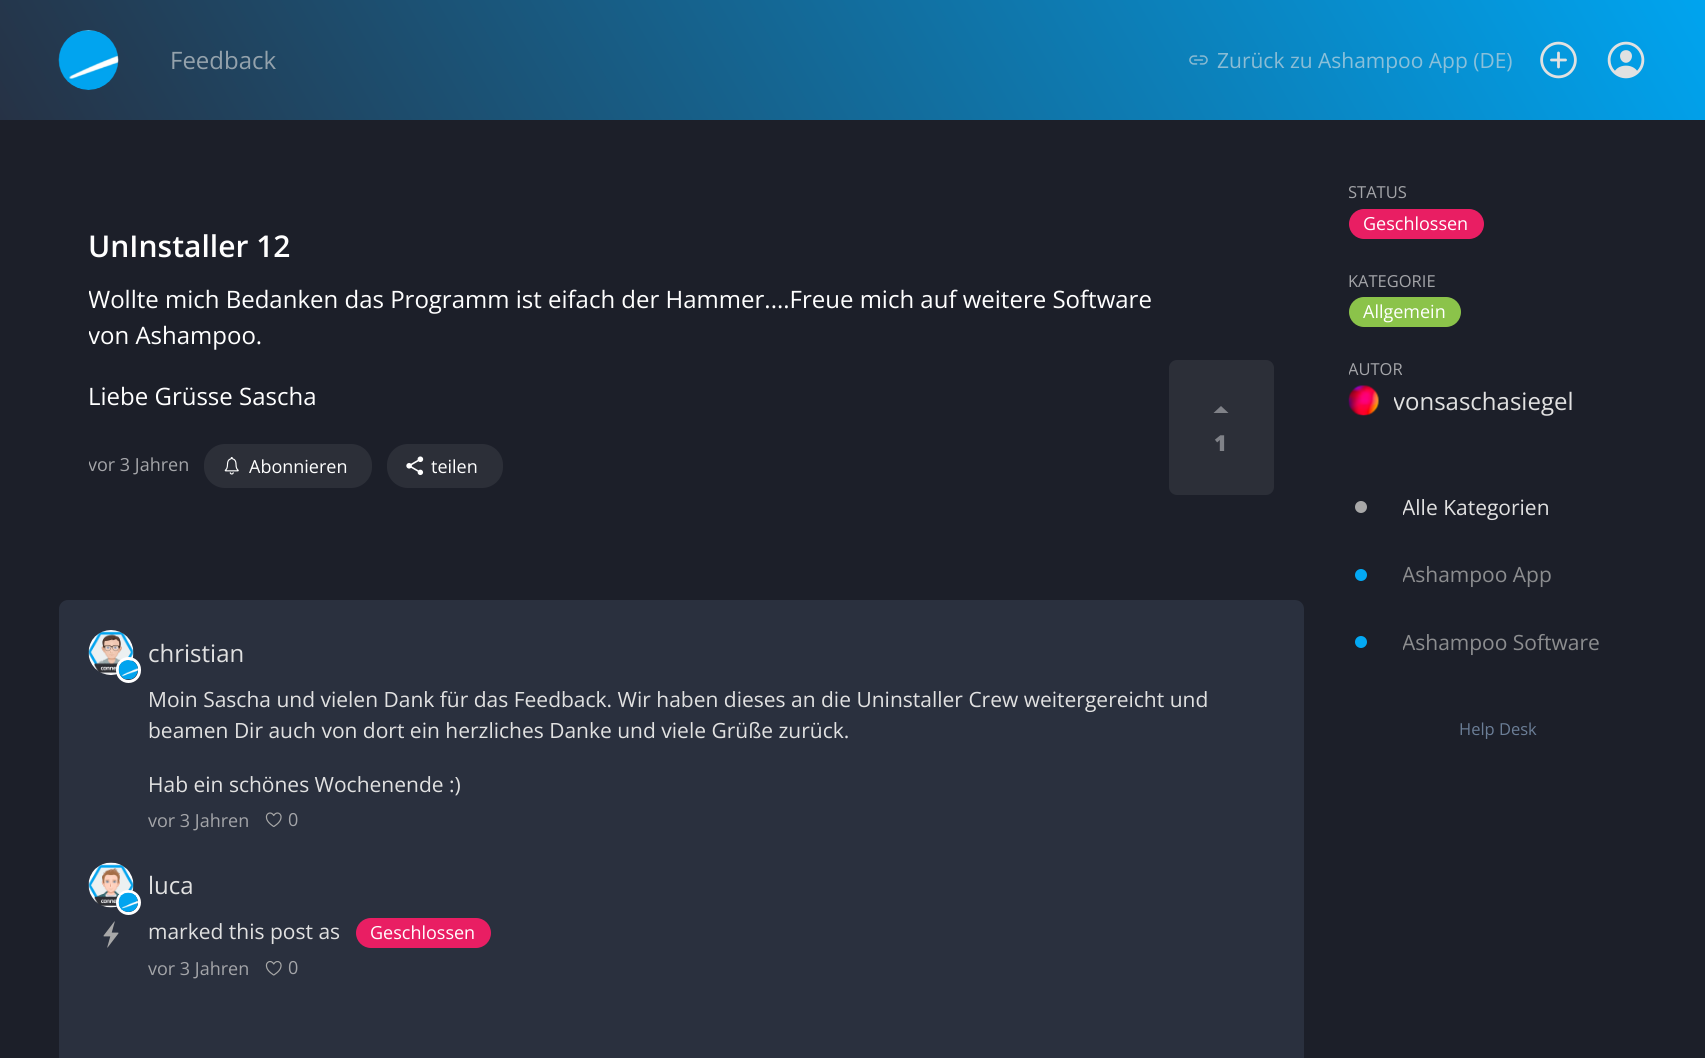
import math
import cairocffi as cairo

surface = cairo.ImageSurface(cairo.FORMAT_RGB24, 1705, 1058)
cr = cairo.Context(surface)
options = cairo.FontOptions()
options.set_hint_metrics(cairo.HINT_METRICS_OFF)
options.set_hint_style(cairo.HINT_STYLE_NONE)
cr.set_font_options(options)
cr.set_miter_limit(4)


def use_color(code):
    cr.set_source_rgb(*(v / 255 for v in bytes.fromhex(code[-6:])))


def round_rect(x, y, w, h, r):
    cr.new_sub_path()
    for i, (u, v) in enumerate([(x + w - r, y + h - r), (x + r, y + h - r), (x + r, y + r), (x + w - r, y + r)]):
        cr.arc(u, v, r, i * math.pi / 2, (i + 1) * math.pi / 2)
    cr.close_path()


def picture(path, x, y, w, h):
    cr.save()
    cr.set_source_surface(cairo.ImageSurface.create_from_png(path), x, y)
    cr.rectangle(x, y, w, h)
    cr.fill()
    cr.restore()


use_color("#1c1f29")
cr.paint()
gradient = cairo.LinearGradient(187, 444, 1518, -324)
gradient.add_color_stop_rgba(0, 0.149, 0.196, 0.271, 1)
gradient.add_color_stop_rgba(1, 0, 0.643, 0.937, 1)
cr.set_source(gradient)
cr.rectangle(0, 0, 1705, 120)
cr.fill()
picture("img1.png", 58, 30, 61, 60)
cr.select_font_face("Open Sans")
cr.set_font_size(24)
use_color("#94a2ac")
cr.move_to(170, 69)
cr.show_text("Feedback")
picture("img2.png", 1189, 55, 19, 10)
cr.set_font_size(21)
use_color("#8bbcd4")
cr.move_to(1217, 68)
cr.show_text("Zurück zu")
use_color("#8ac0da")
cr.move_to(1318, 68)
cr.show_text("Ashampoo App (DE)")
picture("img3.png", 1540, 41, 37, 38)
picture("img4.png", 1607, 41, 38, 38)
cr.select_font_face("Open Sans SemiBold")
cr.set_font_size(30)
use_color("#ffffff")
cr.move_to(88, 257)
cr.show_text("UnInstaller 12")
cr.save()
cr.rectangle(89, 281, 1065, 72)
cr.clip()
cr.select_font_face("Open Sans")
cr.set_font_size(24)
cr.move_to(88, 308)
cr.show_text("Wollte mich Bedanken das Programm ist eifach der Hammer....Freue mich auf weitere Software")
cr.move_to(88, 344)
cr.show_text("von Ashampoo.")
cr.restore()
cr.select_font_face("Open Sans")
cr.set_font_size(24)
cr.move_to(88, 405)
cr.show_text("Liebe Grüsse Sascha")
cr.save()
cr.rectangle(89, 225, 1185, 270)
cr.clip()
cr.set_font_size(18)
use_color("#a4a5a9")
cr.move_to(88, 471)
cr.show_text("vor 3 Jahren")
cr.restore()
use_color("#2c2f38")
round_rect(204, 444, 168, 44, 21)
cr.fill()
picture("img5.png", 224, 457, 15, 18)
cr.set_font_size(18)
use_color("#ffffff")
cr.move_to(249, 473)
cr.show_text("Abonnieren")
use_color("#2c2f38")
round_rect(387, 444, 116, 44, 21)
cr.fill()
picture("img6.png", 406, 456, 18, 20)
use_color("#ffffff")
cr.move_to(431, 473)
cr.show_text("teilen")
use_color("#2c2f38")
round_rect(1169, 360, 105, 135, 8)
cr.fill()
use_color("#808288")
cr.new_path()
cr.move_to(1213.5, 413)
cr.line_to(1221, 406)
cr.line_to(1228.5, 413)
cr.close_path()
cr.fill()
cr.select_font_face("Open Sans ExtraBold")
cr.set_font_size(22)
cr.move_to(1214, 451)
cr.show_text("1")
use_color("#2a303e")
round_rect(59, 600, 1245, 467, 9)
cr.fill()
picture("img7.png", 88, 630, 46, 45)
round_rect(117.5, 658.5, 22, 23, 11)
use_color("#ffffff")
cr.set_line_width(3)
cr.stroke()
picture("img8.png", 118, 660, 20, 20)
cr.select_font_face("Open Sans")
cr.set_font_size(24)
use_color("#e1e1e1")
cr.move_to(148, 662)
cr.show_text("christian")
cr.set_font_size(21)
cr.move_to(148, 707)
cr.show_text("Moin Sascha und vielen Dank für das Feedback. Wir haben dieses an die Uninstaller Crew weitergereicht und")
cr.move_to(148, 738)
cr.show_text("beamen Dir auch von dort ein herzliches Danke und viele Grüße zurück.")
cr.move_to(148, 792)
cr.show_text("Hab ein schönes Wochenende :)")
cr.set_font_size(18)
use_color("#a4a5a9")
cr.move_to(148, 827)
cr.show_text("vor 3 Jahren")
picture("img9.png", 265, 812, 17, 15)
cr.move_to(288, 826)
cr.show_text("0")
picture("img10.png", 88, 862, 46, 46)
cr.arc(128.5, 902.5, 11, 0, 2 * math.pi)
use_color("#ffffff")
cr.stroke()
picture("img11.png", 118, 892, 20, 20)
cr.set_font_size(24)
use_color("#e1e1e1")
cr.move_to(148, 894)
cr.show_text("luca")
picture("img12.png", 103, 921, 16, 27)
cr.set_font_size(21)
cr.move_to(148, 939)
cr.show_text("marked this post as")
use_color("#e91e63")
round_rect(356, 918, 135, 30, 15)
cr.fill()
cr.set_font_size(18)
use_color("#ffffff")
cr.move_to(370, 939)
cr.show_text("Geschlossen")
use_color("#a4a5a9")
cr.move_to(148, 975)
cr.show_text("vor 3 Jahren")
picture("img13.png", 265, 961, 17, 15)
cr.move_to(288, 974)
cr.show_text("0")
cr.save()
round_rect(1349, 180, 300, 236, 9)
cr.clip()
cr.set_font_size(16.5)
cr.move_to(1348, 198)
cr.show_text("STATUS")
cr.restore()
use_color("#e91e63")
round_rect(1349, 209, 135, 30, 15)
cr.fill()
use_color("#ffffff")
cr.move_to(1363, 230)
cr.show_text("Geschlossen")
cr.set_font_size(16.5)
use_color("#a4a5a9")
cr.move_to(1348, 287)
cr.show_text("KATEGORIE")
use_color("#8bc34a")
round_rect(1349, 297, 112, 30, 15)
cr.fill()
cr.set_font_size(18)
use_color("#ffffff")
cr.move_to(1363, 318)
cr.show_text("Allgemein")
cr.save()
round_rect(1349, 180, 300, 236, 9)
cr.clip()
cr.set_font_size(16.5)
use_color("#a4a5a9")
cr.move_to(1348, 375)
cr.show_text("AUTOR")
cr.restore()
picture("img14.png", 1348, 385, 31, 31)
cr.save()
cr.rectangle(1394, 386, 180, 30)
cr.clip()
cr.set_font_size(24)
use_color("#e1e1e1")
cr.move_to(1393, 410)
cr.show_text("vonsaschasiegel")
cr.restore()
use_color("#a8a8a8")
cr.new_path()
cr.arc(1361, 507, 6, 0, 2 * math.pi)
cr.fill()
cr.save()
cr.rectangle(1403, 473, 147, 67)
cr.clip()
cr.set_font_size(21)
use_color("#e1e1e1")
cr.move_to(1402, 515)
cr.show_text("Alle Kategorien")
cr.restore()
use_color("#03a9f4")
cr.new_path()
cr.arc(1361, 575, 6, 0, 2 * math.pi)
cr.fill()
cr.save()
cr.rectangle(1403, 540, 148, 68)
cr.clip()
cr.set_font_size(21)
use_color("#8c8d8f")
cr.move_to(1402, 582)
cr.show_text("Ashampoo App")
cr.restore()
cr.new_path()
cr.arc(1361, 642, 6, 0, 2 * math.pi)
cr.fill()
cr.save()
cr.rectangle(1403, 608, 196, 67)
cr.clip()
cr.set_font_size(21)
use_color("#8c8d8f")
cr.move_to(1402, 650)
cr.show_text("Ashampoo Software")
cr.restore()
cr.set_font_size(16.5)
use_color("#6b7e97")
cr.move_to(1459, 735)
cr.show_text("Help Desk")
surface.write_to_png("result.png")
